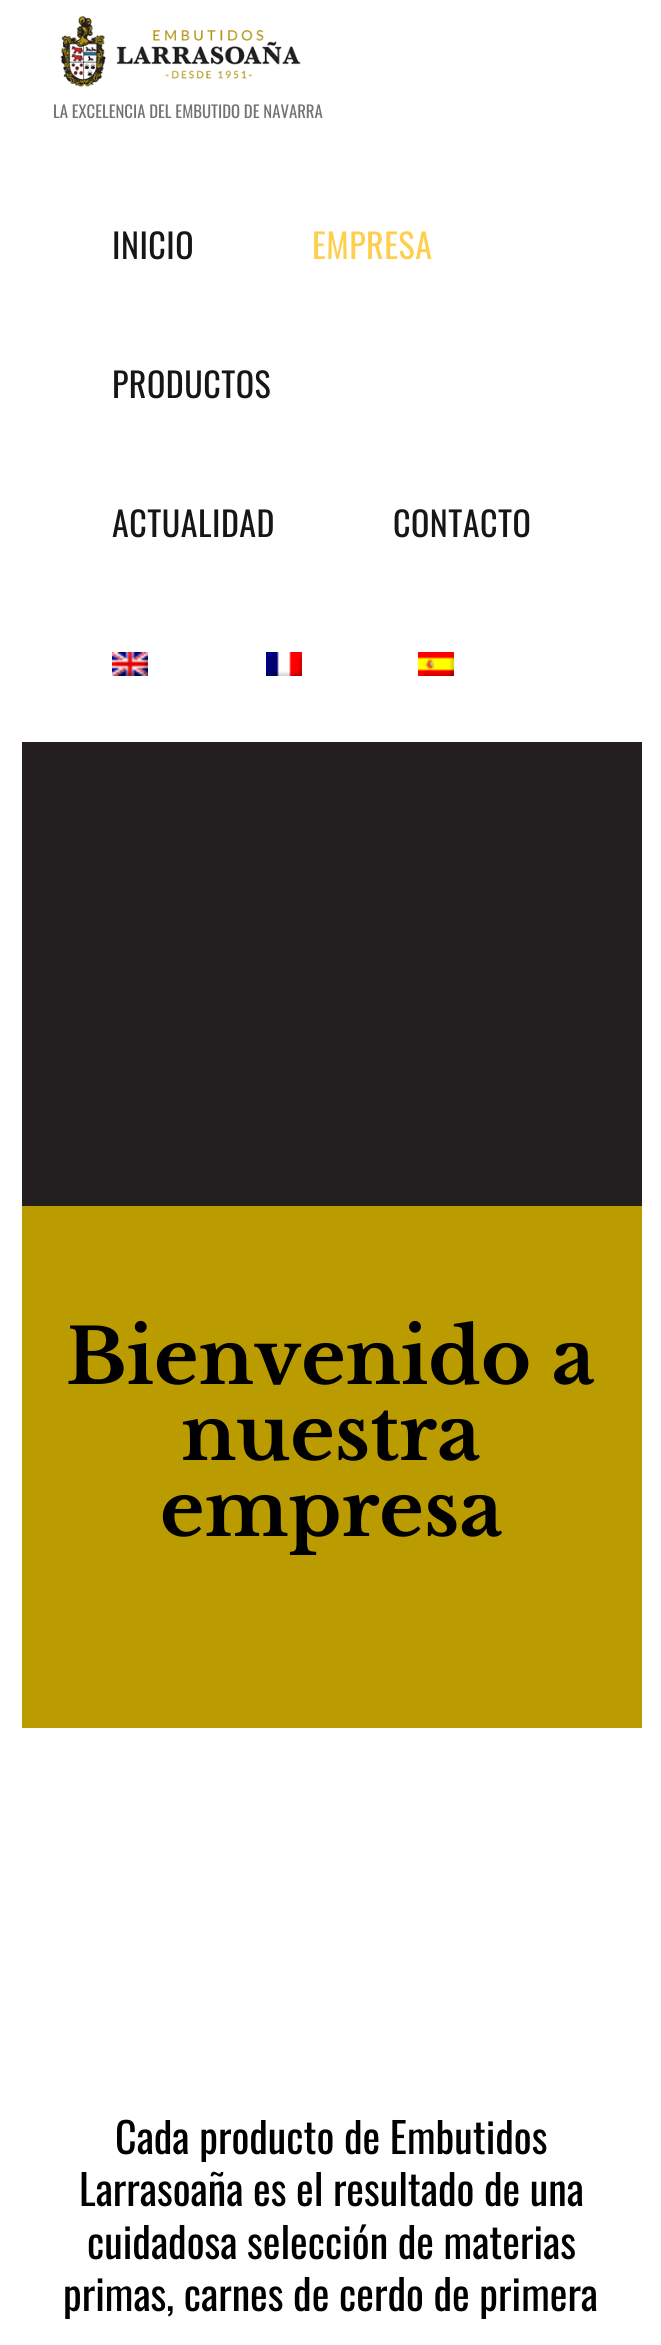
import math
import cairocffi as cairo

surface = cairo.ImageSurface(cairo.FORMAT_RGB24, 661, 2345)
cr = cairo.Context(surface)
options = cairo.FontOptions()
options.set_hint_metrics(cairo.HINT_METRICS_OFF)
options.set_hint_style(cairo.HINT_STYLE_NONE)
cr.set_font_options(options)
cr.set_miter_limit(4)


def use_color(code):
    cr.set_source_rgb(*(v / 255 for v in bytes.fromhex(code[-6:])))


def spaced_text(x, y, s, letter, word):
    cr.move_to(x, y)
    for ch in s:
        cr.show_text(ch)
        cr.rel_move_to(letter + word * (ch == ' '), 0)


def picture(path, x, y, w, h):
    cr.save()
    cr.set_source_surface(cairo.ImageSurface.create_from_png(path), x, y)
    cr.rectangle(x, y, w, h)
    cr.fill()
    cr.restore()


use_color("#ffffff")
cr.paint()
picture("img1.png", 60, 15, 241, 72)
cr.select_font_face("Oswald")
cr.set_font_size(16.75)
use_color("#727272")
cr.move_to(53, 118)
cr.show_text("LA EXCELENCIA DEL EMBUTIDO DE NAVARRA")
cr.set_font_size(34)
use_color("#181516")
spaced_text(112, 259, "INICIO", 0.5, 0)
use_color("#fecf4d")
spaced_text(312, 259, "EMPRESA", 0.5, 0)
use_color("#181516")
spaced_text(112, 398, "PRODUCTOS", 0.5, 0)
spaced_text(112, 537, "ACTUALIDAD", 0.5, 0)
spaced_text(393, 537, "CONTACTO", 0.5, 0)
picture("img2.png", 112, 652, 36, 24)
picture("img3.png", 266, 652, 36, 24)
picture("img4.png", 418, 652, 36, 24)
use_color("#231f20")
cr.rectangle(22, 742, 620, 464)
cr.fill()
use_color("#bb9c00")
cr.rectangle(22, 1206, 620, 522)
cr.fill()
cr.select_font_face("Libre Baskerville", cairo.FONT_SLANT_NORMAL, cairo.FONT_WEIGHT_BOLD)
cr.set_font_size(76)
use_color("#000000")
cr.move_to(66, 1384)
cr.show_text("Bienvenido a")
cr.move_to(181, 1460)
cr.show_text("nuestra")
cr.move_to(160, 1536)
cr.show_text("empresa")
cr.select_font_face("Oswald")
cr.set_font_size(42)
cr.move_to(115, 2154)
cr.show_text("Cada producto de Embutidos")
cr.move_to(79, 2206)
cr.show_text("Larrasoaña es el resultado de una")
cr.move_to(87, 2259)
cr.show_text("cuidadosa selección de materias")
cr.move_to(63, 2311)
cr.show_text("primas, carnes de cerdo de primera")
surface.write_to_png("result.png")
